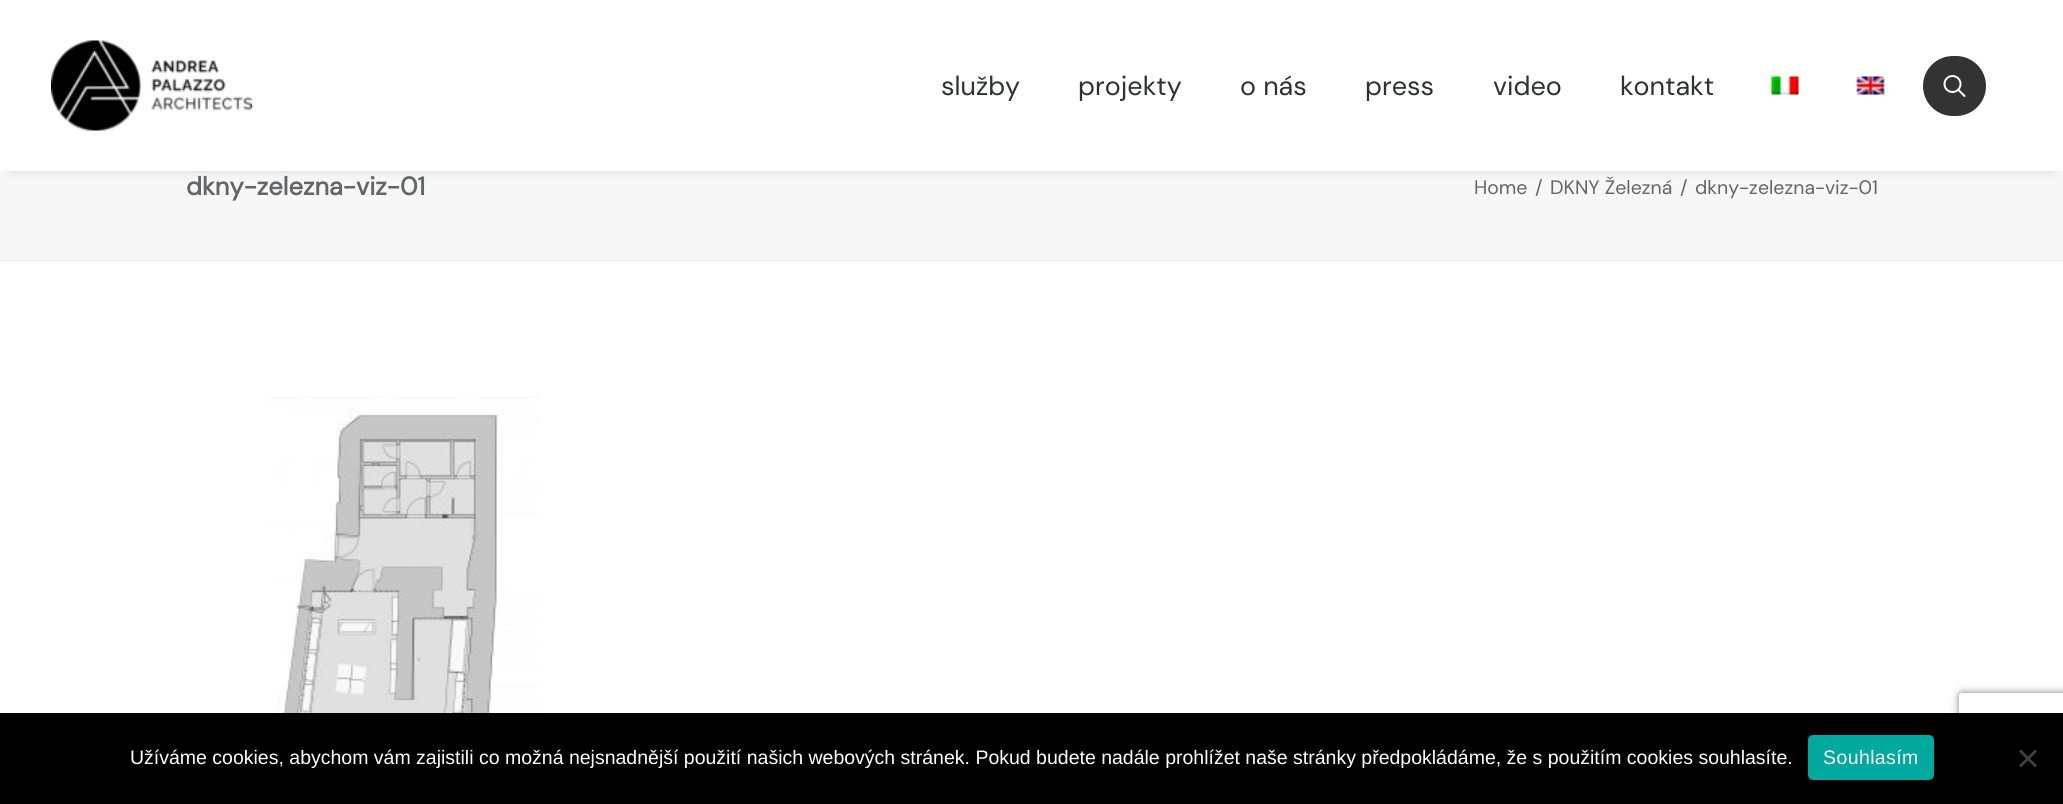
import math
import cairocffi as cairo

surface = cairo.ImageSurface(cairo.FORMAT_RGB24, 2063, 804)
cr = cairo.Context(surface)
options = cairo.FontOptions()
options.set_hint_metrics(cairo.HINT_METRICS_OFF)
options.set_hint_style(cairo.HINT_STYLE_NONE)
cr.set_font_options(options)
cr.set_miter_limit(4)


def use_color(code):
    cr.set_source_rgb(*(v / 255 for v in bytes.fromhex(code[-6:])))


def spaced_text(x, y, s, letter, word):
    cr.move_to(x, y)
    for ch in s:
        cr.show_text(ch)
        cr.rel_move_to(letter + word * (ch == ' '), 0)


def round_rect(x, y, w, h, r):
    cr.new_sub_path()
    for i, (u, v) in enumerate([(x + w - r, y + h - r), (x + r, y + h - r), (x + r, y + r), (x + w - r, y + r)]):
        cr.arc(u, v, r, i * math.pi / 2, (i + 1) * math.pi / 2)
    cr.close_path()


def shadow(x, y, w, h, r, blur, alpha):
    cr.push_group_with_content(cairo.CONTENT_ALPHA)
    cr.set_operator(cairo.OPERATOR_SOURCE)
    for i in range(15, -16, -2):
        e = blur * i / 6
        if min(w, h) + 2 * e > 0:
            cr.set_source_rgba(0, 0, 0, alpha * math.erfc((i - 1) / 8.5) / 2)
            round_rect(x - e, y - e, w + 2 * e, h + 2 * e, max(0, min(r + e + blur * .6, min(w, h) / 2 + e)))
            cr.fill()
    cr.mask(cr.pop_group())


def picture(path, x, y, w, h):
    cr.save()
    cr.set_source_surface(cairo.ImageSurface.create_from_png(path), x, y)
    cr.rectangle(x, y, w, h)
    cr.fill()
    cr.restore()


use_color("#f7f7f7")
cr.paint()
use_color("#000000")
shadow(12, 21, 2040, 141, 0, 7.5, 0.6)
use_color("#ffffff")
cr.rectangle(0, 0, 2063, 171)
cr.fill()
picture("img1.png", 51, 40, 202, 91)
cr.select_font_face("DM Sans")
cr.set_font_size(27)
use_color("#303133")
cr.move_to(941, 95)
cr.show_text("služby")
cr.move_to(1078, 95)
cr.show_text("projekty")
cr.move_to(1240, 95)
cr.show_text("o nás")
cr.move_to(1365, 95)
cr.show_text("press")
cr.move_to(1493, 95)
cr.show_text("video")
cr.move_to(1620, 95)
cr.show_text("kontakt")
picture("img2.png", 1771, 76, 28, 19)
picture("img3.png", 1856, 76, 29, 19)
use_color("#333333")
round_rect(1923, 56, 63, 60, 30)
cr.fill()
picture("img4.png", 1943, 75, 23, 22)
use_color("#eaeaea")
cr.rectangle(0, 260, 2063, 1)
cr.fill()
cr.select_font_face("DM Sans", cairo.FONT_SLANT_NORMAL, cairo.FONT_WEIGHT_BOLD)
cr.set_font_size(25.5)
use_color("#636566")
cr.move_to(186, 195)
cr.show_text("dkny-zelezna-viz-01")
cr.select_font_face("DM Sans")
cr.set_font_size(19.5)
cr.move_to(1474, 194)
cr.show_text("Home")
cr.move_to(1535, 194)
cr.show_text("/")
cr.move_to(1550, 194)
cr.show_text("DKNY Železná")
cr.move_to(1680, 194)
cr.show_text("/")
cr.move_to(1695, 194)
cr.show_text("dkny-zelezna-viz-01")
use_color("#ffffff")
cr.rectangle(0, 261, 2063, 452)
cr.fill()
picture("img5.png", 266, 396, 274, 317)
cr.save()
cr.set_fill_rule(cairo.FILL_RULE_EVEN_ODD)
cr.new_path()
cr.move_to(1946, 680)
cr.line_to(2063, 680)
cr.line_to(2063, 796)
cr.line_to(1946, 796)
cr.close_path()
cr.move_to(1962, 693)
cr.line_to(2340, 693)
cr.curve_to(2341.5, 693, 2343, 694.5, 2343, 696)
cr.line_to(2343, 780)
cr.curve_to(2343, 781.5, 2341.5, 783, 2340, 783)
cr.line_to(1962, 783)
cr.curve_to(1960.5, 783, 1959, 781.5, 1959, 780)
cr.line_to(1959, 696)
cr.curve_to(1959, 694.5, 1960.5, 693, 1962, 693)
cr.close_path()
cr.clip()
use_color("#808080")
shadow(1959, 693, 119, 90, 3, 4, 1)
cr.restore()
use_color("#000000")
cr.rectangle(0, 713, 2063, 91)
cr.fill()
cr.select_font_face("Liberation Sans")
use_color("#ffffff")
cr.move_to(130, 764)
cr.show_text("Užíváme cookies, abychom vám zajistili co možná nejsnadnější použití našich webových stránek. Pokud budete nadále prohlížet naše stránky předpokládáme, že s použitím cookies souhlasíte.")
use_color("#00a99d")
round_rect(1808, 735, 126, 45, 5)
cr.fill()
use_color("#ffffff")
spaced_text(1823, 764, "Souhlasím", 0.4, 0)
use_color("#404040")
cr.new_path()
cr.move_to(2035, 749.5)
cr.line_to(2037, 751.5)
cr.line_to(2021, 767.5)
cr.line_to(2019, 765.5)
cr.close_path()
cr.fill()
cr.new_path()
cr.move_to(2019, 751.5)
cr.line_to(2021, 749.5)
cr.line_to(2037, 765.5)
cr.line_to(2035, 767.5)
cr.close_path()
cr.fill()
surface.write_to_png("result.png")
